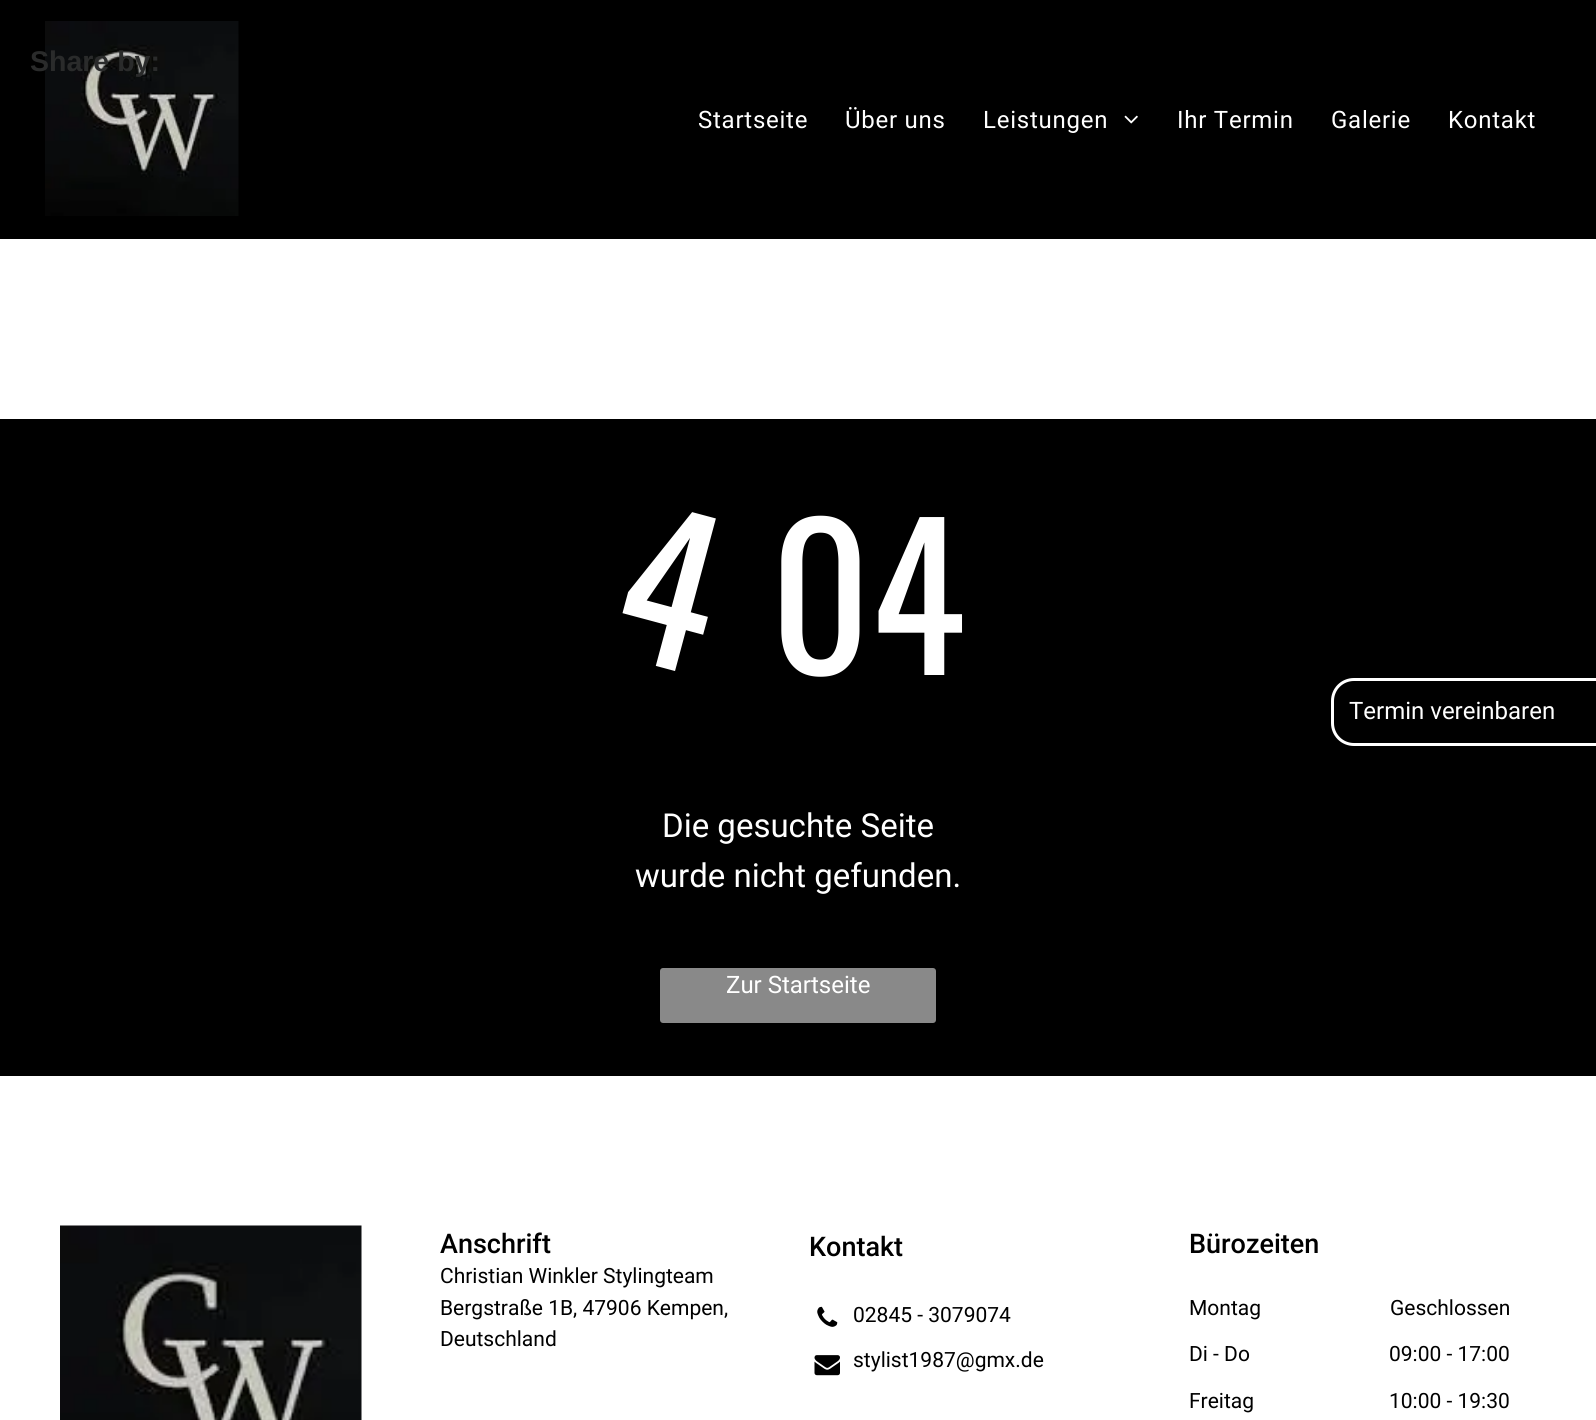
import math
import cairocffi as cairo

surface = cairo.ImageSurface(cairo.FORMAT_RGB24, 1596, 1420)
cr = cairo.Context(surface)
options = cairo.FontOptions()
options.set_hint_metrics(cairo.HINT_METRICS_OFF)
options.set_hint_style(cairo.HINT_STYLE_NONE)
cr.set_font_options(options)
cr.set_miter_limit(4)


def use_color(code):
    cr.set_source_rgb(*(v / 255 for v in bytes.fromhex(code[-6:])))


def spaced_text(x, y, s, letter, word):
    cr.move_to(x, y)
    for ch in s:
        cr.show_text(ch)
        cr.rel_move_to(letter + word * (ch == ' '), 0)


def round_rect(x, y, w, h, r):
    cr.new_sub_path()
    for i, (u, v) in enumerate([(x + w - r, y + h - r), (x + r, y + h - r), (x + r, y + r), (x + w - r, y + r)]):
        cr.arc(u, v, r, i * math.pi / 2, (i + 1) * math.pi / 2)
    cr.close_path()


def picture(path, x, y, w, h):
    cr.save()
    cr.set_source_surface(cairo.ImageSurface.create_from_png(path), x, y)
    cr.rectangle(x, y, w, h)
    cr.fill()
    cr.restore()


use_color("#ffffff")
cr.paint()
use_color("#000000")
cr.rectangle(0, 0, 1596, 239)
cr.fill()
picture("img1.png", 45, 21, 194, 195)
cr.select_font_face("Liberation Sans", cairo.FONT_SLANT_NORMAL, cairo.FONT_WEIGHT_BOLD)
cr.set_font_size(28.5)
use_color("#2a2b2b")
cr.move_to(30, 71)
cr.show_text("Share by:")
cr.select_font_face("Roboto")
cr.set_font_size(24)
use_color("#ffffff")
spaced_text(698, 128, "Startseite", 0.75, 0)
spaced_text(845, 128, "Über uns", 0.75, 0)
spaced_text(983, 128, "Leistungen", 0.75, 0)
picture("img2.png", 1124, 115, 14, 9)
spaced_text(1177, 128, "Ihr Termin", 0.75, 0)
spaced_text(1331, 128, "Galerie", 0.75, 0)
spaced_text(1448, 128, "Kontakt", 0.75, 0)
use_color("#000000")
cr.rectangle(0, 419, 1596, 657)
cr.fill()
cr.select_font_face("Oswald")
cr.set_font_size(195)
use_color("#ffffff")
cr.save()
cr.translate(604, 652)
cr.rotate(15 * math.pi / 180)
cr.move_to(0, 0)
cr.show_text("4")
cr.restore()
cr.move_to(770, 675)
cr.show_text("04")
cr.select_font_face("Roboto")
cr.set_font_size(33)
cr.move_to(662, 837)
cr.show_text("Die gesuchte Seite")
cr.move_to(635, 887)
cr.show_text("wurde nicht gefunden.")
use_color("#898989")
round_rect(660, 968, 276, 55, 3)
cr.fill()
cr.set_font_size(24)
use_color("#ffffff")
cr.move_to(726, 993)
cr.show_text("Zur Startseite")
cr.new_path()
cr.move_to(1354, 679.5)
cr.line_to(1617.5, 679.5)
cr.line_to(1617.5, 744.5)
cr.line_to(1354, 744.5)
cr.curve_to(1342, 744.5, 1332.5, 735, 1332.5, 723)
cr.line_to(1332.5, 701)
cr.curve_to(1332.5, 689, 1342, 679.5, 1354, 679.5)
cr.close_path()
cr.set_line_width(3)
cr.stroke()
cr.move_to(1349, 719)
cr.show_text("Termin vereinbaren")
picture("img3.png", 60, 1225, 302, 195)
cr.select_font_face("Roboto Medium")
cr.set_font_size(27)
use_color("#000000")
cr.move_to(440, 1253)
cr.show_text("Anschrift")
cr.select_font_face("Roboto")
cr.set_font_size(21)
cr.move_to(440, 1283)
cr.show_text("Christian Winkler Stylingteam")
cr.move_to(440, 1315)
cr.show_text("Bergstraße 1B, 47906 Kempen,")
cr.move_to(440, 1346)
cr.show_text("Deutschland")
cr.select_font_face("Roboto Medium")
cr.set_font_size(27)
cr.move_to(809, 1256)
cr.show_text("Kontakt")
picture("img4.png", 817, 1306, 21, 21)
cr.select_font_face("Roboto")
cr.set_font_size(21)
cr.move_to(853, 1322)
cr.show_text("02845 - 3079074")
picture("img5.png", 814, 1355, 26, 21)
cr.move_to(853, 1367)
cr.show_text("stylist1987@gmx.de")
cr.select_font_face("Roboto Medium")
cr.set_font_size(27)
cr.move_to(1189, 1253)
cr.show_text("Bürozeiten")
cr.select_font_face("Roboto")
cr.set_font_size(21)
cr.move_to(1189, 1315)
cr.show_text("Montag")
cr.move_to(1390, 1315)
cr.show_text("Geschlossen")
cr.move_to(1189, 1361)
cr.show_text("Di - Do")
cr.move_to(1389, 1361)
cr.show_text("09:00 - 17:00")
cr.move_to(1189, 1408)
cr.show_text("Freitag")
cr.move_to(1389, 1408)
cr.show_text("10:00 - 19:30")
surface.write_to_png("result.png")
